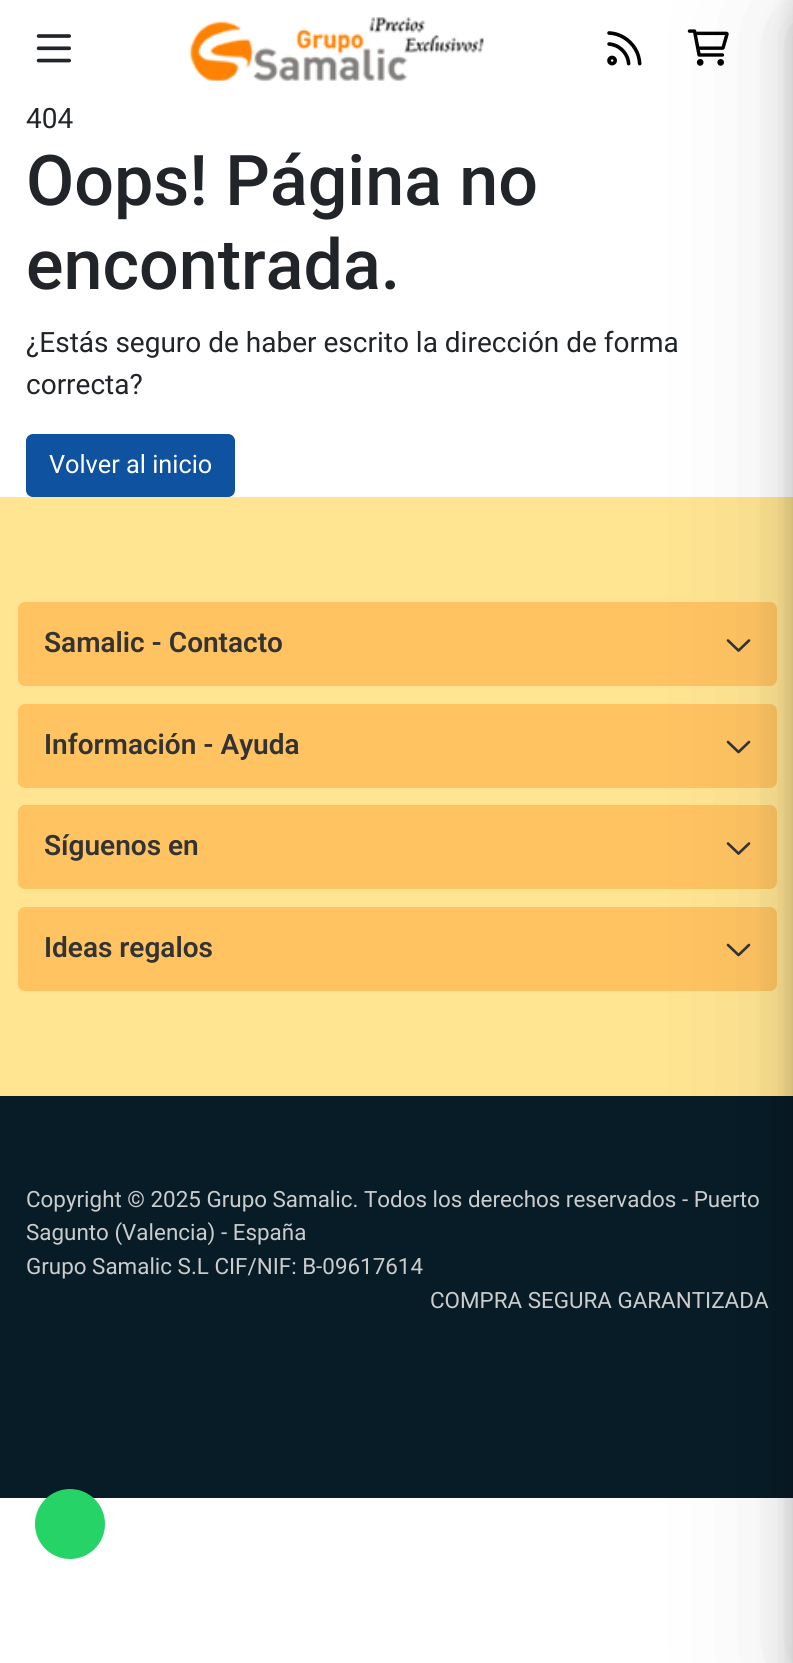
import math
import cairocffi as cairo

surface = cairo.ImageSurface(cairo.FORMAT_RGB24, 793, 1663)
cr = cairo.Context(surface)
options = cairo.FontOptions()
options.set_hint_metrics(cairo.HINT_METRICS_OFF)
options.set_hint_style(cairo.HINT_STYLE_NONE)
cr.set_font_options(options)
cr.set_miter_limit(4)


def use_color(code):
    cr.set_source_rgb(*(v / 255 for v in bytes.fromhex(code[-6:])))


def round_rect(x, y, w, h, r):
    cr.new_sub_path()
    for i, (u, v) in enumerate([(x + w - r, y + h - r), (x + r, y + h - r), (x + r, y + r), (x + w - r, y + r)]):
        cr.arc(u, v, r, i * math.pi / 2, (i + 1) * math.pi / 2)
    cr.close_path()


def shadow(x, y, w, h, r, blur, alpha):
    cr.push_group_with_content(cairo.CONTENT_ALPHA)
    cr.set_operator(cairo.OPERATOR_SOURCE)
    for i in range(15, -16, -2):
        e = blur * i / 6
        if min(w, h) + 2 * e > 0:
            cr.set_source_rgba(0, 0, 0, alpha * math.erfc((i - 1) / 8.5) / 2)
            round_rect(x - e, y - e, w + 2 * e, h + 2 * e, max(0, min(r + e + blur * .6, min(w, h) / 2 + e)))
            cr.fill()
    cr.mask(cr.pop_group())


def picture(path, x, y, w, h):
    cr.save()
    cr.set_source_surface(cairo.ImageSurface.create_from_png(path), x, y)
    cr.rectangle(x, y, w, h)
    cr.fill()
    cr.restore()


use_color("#ffffff")
cr.paint()
picture("img1.png", 36, 34, 35, 29)
picture("img2.png", 190, 17, 294, 64)
picture("img3.png", 607, 31, 35, 35)
picture("img4.png", 687, 29, 42, 37)
use_color("#ffe492")
cr.rectangle(0, 497, 793, 599)
cr.fill()
use_color("#ffc362")
round_rect(18, 602, 759, 84, 7)
cr.fill()
round_rect(18, 704, 759, 84, 7)
cr.fill()
round_rect(18, 805, 759, 84, 7)
cr.fill()
round_rect(18, 907, 759, 84, 7)
cr.fill()
use_color("#071c27")
cr.rectangle(0, 1096, 793, 402)
cr.fill()
use_color("#000000")
shadow(791, 0, 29, 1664, 0, 9, 0.1)
cr.select_font_face("Roboto")
cr.set_font_size(28)
use_color("#212529")
cr.move_to(26, 128)
cr.show_text("404")
cr.select_font_face("Roboto Medium")
cr.set_font_size(70)
cr.move_to(26, 205)
cr.show_text("Oops! Página no")
cr.move_to(26, 289)
cr.show_text("encontrada.")
cr.select_font_face("Roboto")
cr.set_font_size(28)
cr.move_to(26, 352)
cr.show_text("¿Estás seguro de haber escrito la dirección de forma")
cr.move_to(26, 394)
cr.show_text("correcta?")
use_color("#0f529f")
round_rect(27, 435, 207, 61, 6)
cr.fill_preserve()
cr.stroke()
cr.set_font_size(25.25)
use_color("#ffffff")
cr.move_to(49, 473)
cr.show_text("Volver al inicio")
cr.select_font_face("Roboto SemiBold")
cr.set_font_size(28)
use_color("#333333")
cr.move_to(44, 652)
cr.show_text("Samalic - Contacto")
picture("img5.png", 726, 639, 25, 13)
cr.move_to(44, 754)
cr.show_text("Información - Ayuda")
picture("img6.png", 726, 740, 25, 14)
cr.move_to(44, 855)
cr.show_text("Síguenos en")
picture("img5.png", 726, 842, 25, 13)
cr.move_to(44, 957)
cr.show_text("Ideas regalos")
picture("img6.png", 726, 943, 25, 14)
use_color("#000000")
shadow(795, 11, 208, 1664, 0, 70, 0.12)
shadow(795, 28, 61, 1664, 0, 21, 0.14)
cr.select_font_face("Roboto")
cr.set_font_size(22.4)
use_color("#cccccc")
cr.move_to(26, 1207)
cr.show_text("Copyright © 2025 Grupo Samalic. Todos los derechos reservados - Puerto")
cr.move_to(26, 1240)
cr.show_text("Sagunto (Valencia) - España")
cr.move_to(26, 1274)
cr.show_text("Grupo Samalic S.L CIF/NIF: B-09617614")
cr.move_to(430, 1308)
cr.show_text("COMPRA SEGURA GARANTIZADA")
use_color("#25d366")
cr.new_path()
cr.arc(70, 1524, 35, 0, 2 * math.pi)
cr.fill()
surface.write_to_png("result.png")
